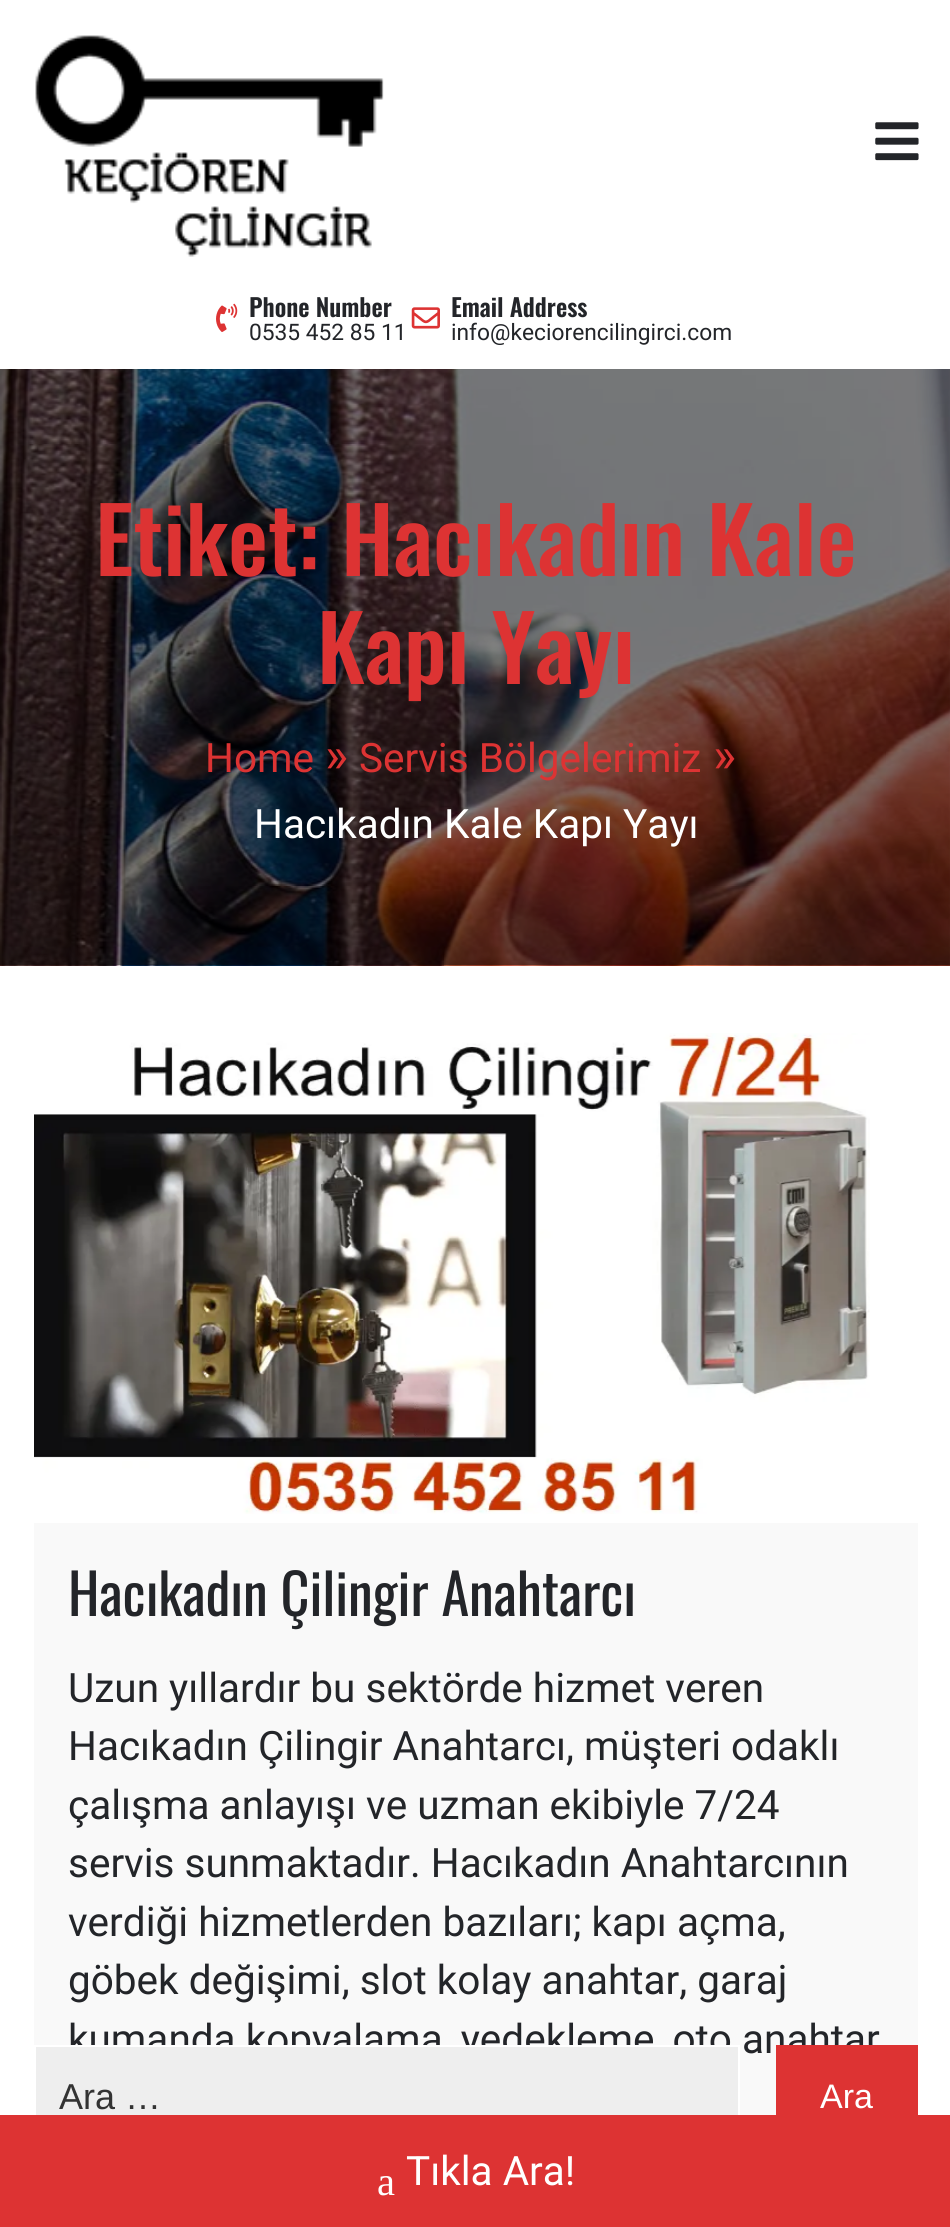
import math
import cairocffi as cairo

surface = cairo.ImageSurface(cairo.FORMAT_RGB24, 950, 2227)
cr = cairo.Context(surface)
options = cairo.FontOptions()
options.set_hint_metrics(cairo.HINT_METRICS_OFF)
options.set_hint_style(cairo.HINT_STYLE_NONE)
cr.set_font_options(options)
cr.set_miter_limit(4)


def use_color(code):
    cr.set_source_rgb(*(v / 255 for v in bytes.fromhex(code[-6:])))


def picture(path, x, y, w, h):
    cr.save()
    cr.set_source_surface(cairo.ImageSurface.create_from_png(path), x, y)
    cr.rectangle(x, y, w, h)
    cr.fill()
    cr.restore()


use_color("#ffffff")
cr.paint()
picture("img1.png", 35, 35, 349, 222)
picture("img2.png", 875, 122, 44, 39)
picture("img3.png", 216, 303, 22, 29)
cr.select_font_face("Oswald SemiBold")
cr.set_font_size(24.5)
use_color("#232529")
cr.move_to(249, 317)
cr.show_text("Phone Number")
cr.select_font_face("Roboto")
cr.set_font_size(22.75)
cr.move_to(249, 340)
cr.show_text("0535 452 85 11")
picture("img4.png", 411, 307, 29, 22)
cr.select_font_face("Oswald SemiBold")
cr.set_font_size(24.5)
cr.move_to(451, 317)
cr.show_text("Email Address")
cr.select_font_face("Roboto")
cr.set_font_size(22.75)
cr.move_to(451, 340)
cr.show_text("info@keciorencilingirci.com")
picture("img5.png", 0, 369, 950, 597)
cr.select_font_face("Oswald Medium")
cr.set_font_size(90)
use_color("#dd3333")
cr.move_to(95, 576)
cr.show_text("Etiket:")
cr.move_to(341, 576)
cr.show_text("Hacıkadın Kale")
cr.move_to(317, 684)
cr.show_text("Kapı Yayı")
cr.select_font_face("Roboto")
cr.set_font_size(40.5)
cr.move_to(205, 772)
cr.show_text("Home")
cr.set_font_size(49)
cr.move_to(325, 772)
cr.show_text("»")
cr.set_font_size(40.5)
cr.move_to(359, 772)
cr.show_text("Servis Bölgelerimiz")
cr.set_font_size(49)
cr.move_to(713, 772)
cr.show_text("»")
cr.set_font_size(40.5)
use_color("#ffffff")
cr.move_to(254, 838)
cr.show_text("Hacıkadın Kale Kapı Yayı")
picture("img6.png", 34, 1033, 836, 481)
use_color("#f9f9f9")
cr.rectangle(34, 1523, 884, 592)
cr.fill()
cr.select_font_face("Oswald")
cr.set_font_size(56.25)
use_color("#232529")
cr.move_to(68, 1616)
cr.show_text("Hacıkadın Çilingir Anahtarcı")
cr.select_font_face("Roboto")
cr.set_font_size(40.5)
cr.move_to(68, 1702)
cr.show_text("Uzun yıllardır bu sektörde hizmet veren")
cr.move_to(68, 1760)
cr.show_text("Hacıkadın Çilingir Anahtarcı, müşteri odaklı")
cr.move_to(68, 1819)
cr.show_text("çalışma anlayışı ve uzman ekibiyle 7/24")
cr.move_to(68, 1877)
cr.show_text("servis sunmaktadır. Hacıkadın Anahtarcının")
cr.move_to(68, 1936)
cr.show_text("verdiği hizmetlerden bazıları; kapı açma,")
cr.move_to(68, 1994)
cr.show_text("göbek değişimi, slot kolay anahtar, garaj")
cr.move_to(68, 2053)
cr.show_text("kumanda kopyalama, yedekleme, oto anahtar")
use_color("#eeeeee")
cr.rectangle(36, 2047, 702, 68)
cr.fill()
cr.rectangle(35, 2046, 704, 104)
use_color("#ffffff")
cr.stroke()
cr.select_font_face("Liberation Sans")
cr.set_font_size(36)
use_color("#333333")
cr.move_to(59, 2109)
cr.show_text("Ara …")
use_color("#dd3333")
cr.rectangle(776, 2045, 142, 70)
cr.fill()
cr.set_font_size(34)
use_color("#ffffff")
cr.move_to(820, 2108)
cr.show_text("Ara")
use_color("#dd3333")
cr.rectangle(0, 2115, 950, 112)
cr.fill()
cr.select_font_face("Liberation Serif")
cr.set_font_size(40.5)
use_color("#ffffff")
cr.move_to(377, 2195)
cr.show_text("a")
cr.select_font_face("Roboto")
cr.move_to(406, 2185)
cr.show_text("Tıkla Ara!")
surface.write_to_png("result.png")
